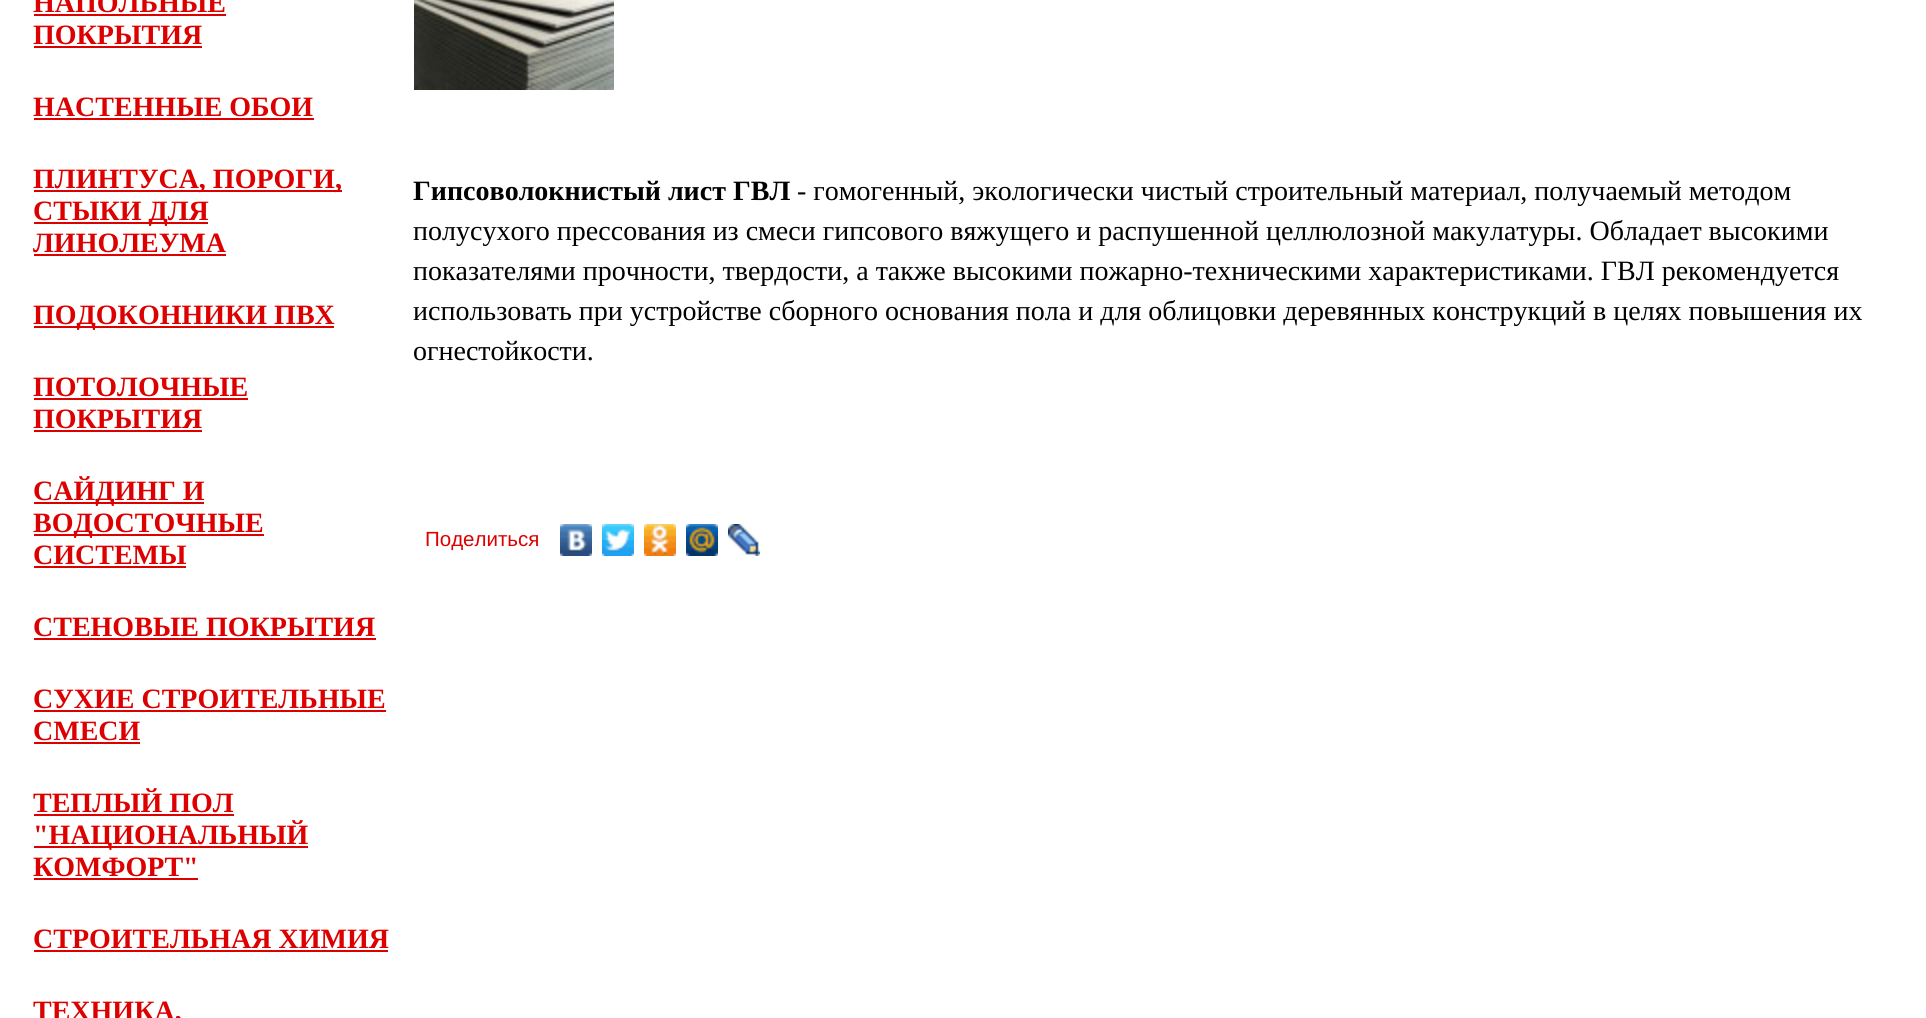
import math
import cairocffi as cairo

surface = cairo.ImageSurface(cairo.FORMAT_RGB24, 1926, 1018)
cr = cairo.Context(surface)
options = cairo.FontOptions()
options.set_hint_metrics(cairo.HINT_METRICS_OFF)
options.set_hint_style(cairo.HINT_STYLE_NONE)
cr.set_font_options(options)
cr.set_miter_limit(4)


def use_color(code):
    cr.set_source_rgb(*(v / 255 for v in bytes.fromhex(code[-6:])))


def picture(path, x, y, w, h):
    cr.save()
    cr.set_source_surface(cairo.ImageSurface.create_from_png(path), x, y)
    cr.rectangle(x, y, w, h)
    cr.fill()
    cr.restore()


use_color("#ffffff")
cr.paint()
cr.select_font_face("Liberation Serif", cairo.FONT_SLANT_NORMAL, cairo.FONT_WEIGHT_BOLD)
cr.set_font_size(28)
use_color("#dc0000")
cr.move_to(33, 12)
cr.show_text("НАПОЛЬНЫЕ")
cr.rectangle(34, 14, 192, 2)
cr.fill()
cr.move_to(33, 44)
cr.show_text("ПОКРЫТИЯ")
cr.rectangle(34, 46, 168, 2)
cr.fill()
cr.move_to(33, 116)
cr.show_text("НАСТЕННЫЕ ОБОИ")
cr.rectangle(34, 118, 280, 2)
cr.fill()
cr.rectangle(34, 190, 308, 2)
cr.fill()
cr.move_to(33, 188)
cr.show_text("ПЛИНТУСА, ПОРОГИ,")
cr.rectangle(34, 222, 174, 2)
cr.fill()
cr.move_to(33, 220)
cr.show_text("СТЫКИ ДЛЯ")
cr.move_to(33, 252)
cr.show_text("ЛИНОЛЕУМА")
cr.rectangle(34, 254, 192, 2)
cr.fill()
cr.rectangle(34, 326, 300, 2)
cr.fill()
cr.move_to(33, 324)
cr.show_text("ПОДОКОННИКИ ПВХ")
cr.move_to(33, 396)
cr.show_text("ПОТОЛОЧНЫЕ")
cr.rectangle(34, 398, 214, 2)
cr.fill()
cr.move_to(33, 428)
cr.show_text("ПОКРЫТИЯ")
cr.rectangle(34, 430, 168, 2)
cr.fill()
cr.rectangle(34, 502, 170, 2)
cr.fill()
cr.move_to(33, 500)
cr.show_text("САЙДИНГ И")
cr.rectangle(34, 534, 230, 2)
cr.fill()
cr.move_to(33, 532)
cr.show_text("ВОДОСТОЧНЫЕ")
cr.move_to(33, 564)
cr.show_text("СИСТЕМЫ")
cr.rectangle(34, 566, 152, 2)
cr.fill()
cr.move_to(33, 636)
cr.show_text("СТЕНОВЫЕ ПОКРЫТИЯ")
cr.rectangle(34, 638, 342, 2)
cr.fill()
cr.move_to(33, 708)
cr.show_text("СУХИЕ СТРОИТЕЛЬНЫЕ")
cr.rectangle(34, 710, 352, 2)
cr.fill()
cr.move_to(33, 740)
cr.show_text("СМЕСИ")
cr.rectangle(34, 742, 106, 2)
cr.fill()
cr.move_to(33, 812)
cr.show_text("ТЕПЛЫЙ ПОЛ")
cr.rectangle(34, 814, 200, 2)
cr.fill()
cr.rectangle(34, 846, 274, 2)
cr.fill()
cr.move_to(33, 844)
cr.show_text("\"НАЦИОНАЛЬНЫЙ")
cr.move_to(33, 876)
cr.show_text("КОМФОРТ\"")
cr.rectangle(34, 878, 164, 2)
cr.fill()
cr.move_to(33, 948)
cr.show_text("СТРОИТЕЛЬНАЯ ХИМИЯ")
cr.rectangle(34, 950, 354, 2)
cr.fill()
cr.move_to(33, 1020)
cr.show_text("ТЕХНИКА,")
picture("img1.png", 414, 0, 200, 90)
use_color("#000000")
cr.move_to(413, 200)
cr.show_text("Гипсоволокнистый лист ГВЛ")
cr.select_font_face("Liberation Serif")
cr.move_to(797, 200)
cr.show_text("- гомогенный, экологически чистый строительный материал, получаемый методом")
cr.move_to(413, 240)
cr.show_text("полусухого прессования из смеси гипсового вяжущего и распушенной целлюлозной макулатуры. Обладает высокими")
cr.move_to(413, 280)
cr.show_text("показателями прочности, твердости, а также высокими пожарно-техническими характеристиками. ГВЛ рекомендуется")
cr.move_to(413, 320)
cr.show_text("использовать при устройстве сборного основания пола и для облицовки деревянных конструкций в целях повышения их")
cr.move_to(413, 360)
cr.show_text("огнестойкости.")
cr.select_font_face("Liberation Sans")
cr.set_font_size(20.5)
use_color("#dc0000")
cr.move_to(425, 546)
cr.show_text("Поделиться")
picture("img2.png", 560, 524, 32, 32)
picture("img3.png", 602, 524, 32, 32)
picture("img4.png", 644, 524, 32, 32)
picture("img5.png", 686, 524, 32, 32)
picture("img6.png", 728, 524, 32, 32)
surface.write_to_png("result.png")
